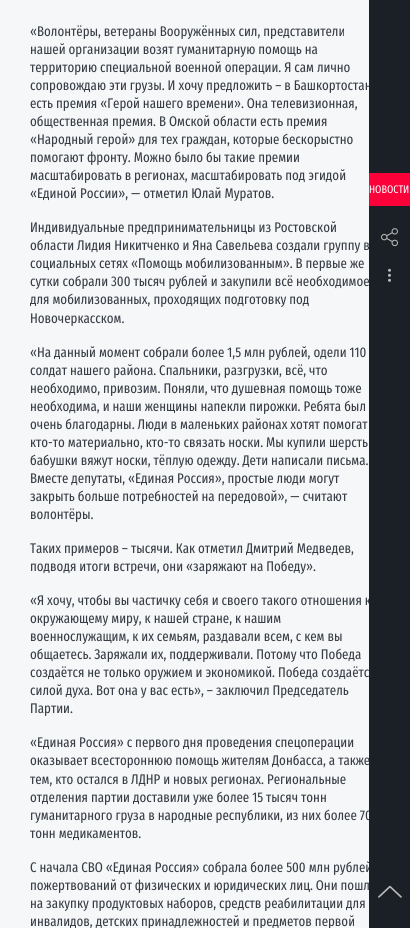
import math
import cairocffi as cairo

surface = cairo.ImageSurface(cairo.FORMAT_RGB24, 410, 928)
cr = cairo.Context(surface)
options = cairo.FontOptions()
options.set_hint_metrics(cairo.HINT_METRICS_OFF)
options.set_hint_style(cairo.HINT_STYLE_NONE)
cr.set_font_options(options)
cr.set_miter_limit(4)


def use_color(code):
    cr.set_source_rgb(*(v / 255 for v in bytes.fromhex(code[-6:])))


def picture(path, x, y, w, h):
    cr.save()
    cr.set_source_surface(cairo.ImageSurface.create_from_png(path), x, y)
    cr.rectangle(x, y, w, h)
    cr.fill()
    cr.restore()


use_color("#f6f7f8")
cr.paint()
cr.select_font_face("Fira Sans Extra Condensed")
cr.set_font_size(14)
use_color("#373d46")
cr.move_to(30, 36)
cr.show_text("«Волонтёры, ветераны Вооружённых сил, представители")
cr.move_to(30, 54)
cr.show_text("нашей организации возят гуманитарную помощь на")
cr.move_to(30, 72)
cr.show_text("территорию специальной военной операции. Я сам лично")
cr.move_to(30, 90)
cr.show_text("сопровождаю эти грузы. И хочу предложить – в Башкортостан")
cr.move_to(30, 108)
cr.show_text("есть премия «Герой нашего времени». Она телевизионная,")
cr.move_to(30, 126)
cr.show_text("общественная премия. В Омской области есть премия")
cr.move_to(30, 144)
cr.show_text("«Народный герой» для тех граждан, которые бескорыстно")
cr.move_to(30, 162)
cr.show_text("помогают фронту. Можно было бы такие премии")
cr.move_to(30, 180)
cr.show_text("масштабировать в регионах, масштабировать под эгидой")
cr.move_to(30, 198)
cr.show_text("«Единой России», — отметил Юлай Муратов.")
cr.move_to(30, 232)
cr.show_text("Индивидуальные предпринимательницы из Ростовской")
cr.move_to(30, 250)
cr.show_text("области Лидия Никитченко и Яна Савельева создали группу в")
cr.move_to(30, 268)
cr.show_text("социальных сетях «Помощь мобилизованным». В первые же")
cr.move_to(30, 286)
cr.show_text("сутки собрали 300 тысяч рублей и закупили всё необходимое")
cr.move_to(30, 304)
cr.show_text("для мобилизованных, проходящих подготовку под")
cr.move_to(30, 323)
cr.show_text("Новочеркасском.")
cr.move_to(30, 357)
cr.show_text("«На данный момент собрали более 1,5 млн рублей, одели 110")
cr.move_to(30, 375)
cr.show_text("солдат нашего района. Спальники, разгрузки, всё, что")
cr.move_to(30, 393)
cr.show_text("необходимо, привозим. Поняли, что душевная помощь тоже")
cr.move_to(30, 411)
cr.show_text("необходима, и наши женщины напекли пирожки. Ребята был")
cr.move_to(30, 429)
cr.show_text("очень благодарны. Люди в маленьких районах хотят помогат")
cr.move_to(30, 447)
cr.show_text("кто-то материально, кто-то связать носки. Мы купили шерсть")
cr.move_to(30, 465)
cr.show_text("бабушки вяжут носки, тёплую одежду. Дети написали письма.")
cr.move_to(30, 483)
cr.show_text("Вместе депутаты, «Единая Россия», простые люди могут")
cr.move_to(30, 501)
cr.show_text("закрыть больше потребностей на передовой», — считают")
cr.move_to(30, 519)
cr.show_text("волонтёры.")
cr.move_to(30, 553)
cr.show_text("Таких примеров – тысячи. Как отметил Дмитрий Медведев,")
cr.move_to(30, 571)
cr.show_text("подводя итоги встречи, они «заряжают на Победу».")
cr.move_to(30, 605)
cr.show_text("«Я хочу, чтобы вы частичку себя и своего такого отношения к")
cr.move_to(30, 623)
cr.show_text("окружающему миру, к нашей стране, к нашим")
cr.move_to(30, 641)
cr.show_text("военнослужащим, к их семьям, раздавали всем, с кем вы")
cr.move_to(30, 659)
cr.show_text("общаетесь. Заряжали их, поддерживали. Потому что Победа")
cr.move_to(30, 677)
cr.show_text("создаётся не только оружием и экономикой. Победа создаётс")
cr.move_to(30, 695)
cr.show_text("силой духа. Вот она у вас есть», – заключил Председатель")
cr.move_to(30, 713)
cr.show_text("Партии.")
cr.move_to(30, 747)
cr.show_text("«Единая Россия» с первого дня проведения спецоперации")
cr.move_to(30, 765)
cr.show_text("оказывает всестороннюю помощь жителям Донбасса, а также")
cr.move_to(30, 784)
cr.show_text("тем, кто остался в ЛДНР и новых регионах. Региональные")
cr.move_to(30, 802)
cr.show_text("отделения партии доставили уже более 15 тысяч тонн")
cr.move_to(30, 820)
cr.show_text("гуманитарного груза в народные республики, из них более 70")
cr.move_to(30, 838)
cr.show_text("тонн медикаментов.")
cr.move_to(30, 872)
cr.show_text("С начала СВО «Единая Россия» собрала более 500 млн рублей")
cr.move_to(30, 890)
cr.show_text("пожертвований от физических и юридических лиц. Они пошл")
cr.move_to(30, 908)
cr.show_text("на закупку продуктовых наборов, средств реабилитации для")
cr.move_to(30, 926)
cr.show_text("инвалидов, детских принадлежностей и предметов первой")
use_color("#1b2026")
cr.rectangle(369, 0, 41, 928)
cr.fill()
use_color("#fb0039")
cr.rectangle(369, 173, 41, 33)
cr.fill()
cr.set_font_size(11)
use_color("#ffffff")
cr.move_to(369, 193)
cr.show_text("НОВОСТИ")
picture("img1.png", 381, 228, 17, 19)
picture("img2.png", 388, 268, 3, 14)
picture("img3.png", 378, 885, 24, 13)
surface.write_to_png("result.png")
